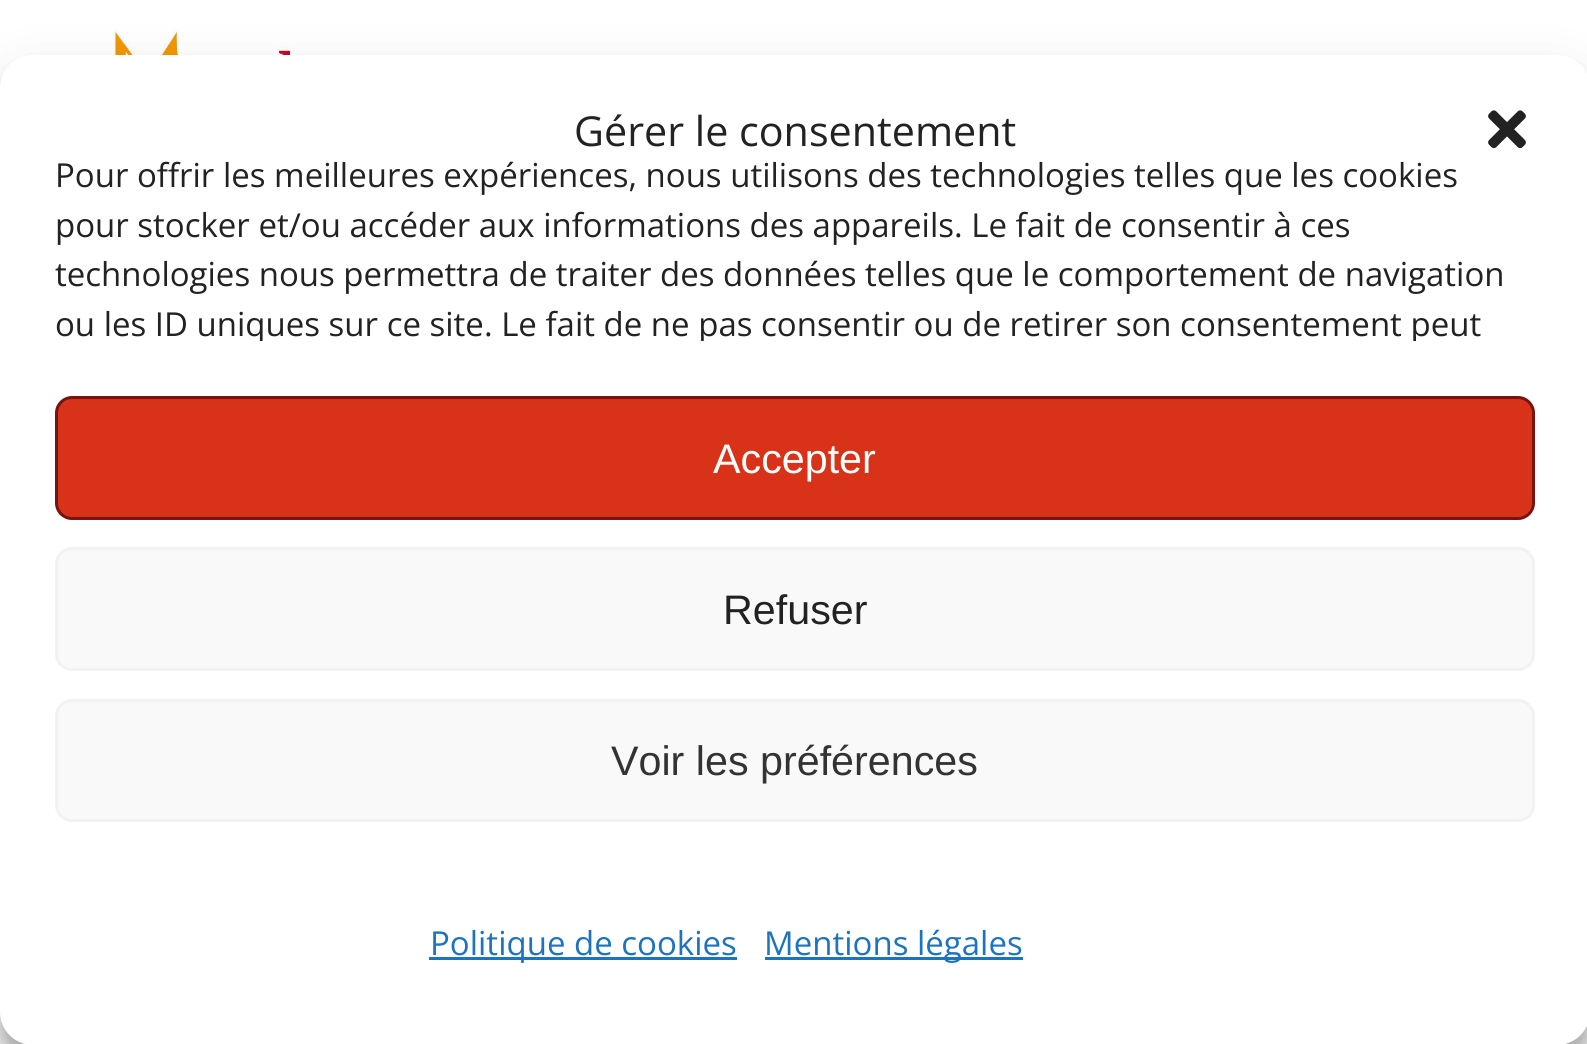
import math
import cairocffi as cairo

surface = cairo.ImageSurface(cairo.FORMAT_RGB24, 1587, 1044)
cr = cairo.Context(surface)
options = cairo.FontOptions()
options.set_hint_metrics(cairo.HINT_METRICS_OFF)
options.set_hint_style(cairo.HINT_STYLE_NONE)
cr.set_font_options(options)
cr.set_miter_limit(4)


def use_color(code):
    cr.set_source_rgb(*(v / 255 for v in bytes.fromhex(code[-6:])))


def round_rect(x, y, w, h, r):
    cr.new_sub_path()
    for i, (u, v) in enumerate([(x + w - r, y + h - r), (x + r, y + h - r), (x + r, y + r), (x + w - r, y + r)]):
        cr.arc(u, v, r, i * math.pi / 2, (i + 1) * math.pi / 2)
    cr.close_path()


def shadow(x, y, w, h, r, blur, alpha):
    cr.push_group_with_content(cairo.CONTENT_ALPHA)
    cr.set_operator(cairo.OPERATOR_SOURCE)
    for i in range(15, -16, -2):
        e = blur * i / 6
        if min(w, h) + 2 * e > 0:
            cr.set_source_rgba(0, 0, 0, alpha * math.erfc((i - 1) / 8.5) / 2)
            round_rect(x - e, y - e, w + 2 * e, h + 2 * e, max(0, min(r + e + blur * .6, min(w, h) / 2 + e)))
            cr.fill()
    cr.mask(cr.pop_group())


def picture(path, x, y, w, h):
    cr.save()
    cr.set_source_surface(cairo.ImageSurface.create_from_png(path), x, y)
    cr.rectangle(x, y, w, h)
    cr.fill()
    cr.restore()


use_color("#ffffff")
cr.paint()
picture("img1.png", 107, 30, 472, 25)
use_color("#000000")
shadow(0, 72, 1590, 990, 33, 8, 0.23)
shadow(0, 83, 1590, 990, 33, 27.5, 0.19)
use_color("#ffffff")
round_rect(0, 55, 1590, 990, 33)
cr.fill()
cr.select_font_face("Open Sans")
cr.set_font_size(41.25)
use_color("#222222")
cr.move_to(574, 146)
cr.show_text("Gérer le consentement")
picture("img2.png", 1488, 110, 38, 39)
cr.set_font_size(33)
cr.move_to(55, 187)
cr.show_text("Pour offrir les meilleures expériences, nous utilisons des technologies telles que les cookies")
cr.move_to(55, 237)
cr.show_text("pour stocker et/ou accéder aux informations des appareils. Le fait de consentir à ces")
cr.move_to(55, 286)
cr.show_text("technologies nous permettra de traiter des données telles que le comportement de navigation")
cr.save()
cr.rectangle(55, 151, 1480, 190)
cr.clip()
cr.move_to(55, 336)
cr.show_text("ou les ID uniques sur ce site. Le fait de ne pas consentir ou de retirer son consentement peut")
cr.restore()
use_color("#d83318")
round_rect(56.5, 397.5, 1477, 121, 15.5)
cr.fill_preserve()
use_color("#771310")
cr.set_line_width(3)
cr.stroke()
cr.select_font_face("Liberation Sans")
cr.set_font_size(41.25)
use_color("#ffffff")
cr.move_to(713, 473)
cr.show_text("Accepter")
use_color("#f9f9f9")
round_rect(56.5, 548.5, 1477, 121, 15.5)
cr.fill_preserve()
use_color("#f2f2f2")
cr.stroke()
use_color("#222222")
cr.move_to(723, 624)
cr.show_text("Refuser")
use_color("#f9f9f9")
round_rect(56.5, 700.5, 1477, 120, 15.5)
cr.fill_preserve()
use_color("#f2f2f2")
cr.stroke()
use_color("#333333")
cr.move_to(611, 775)
cr.show_text("Voir les préférences")
use_color("#1e73be")
cr.rectangle(429, 957, 308, 3)
cr.fill()
cr.select_font_face("Open Sans")
cr.set_font_size(33)
cr.move_to(430, 955)
cr.show_text("Politique de cookies")
cr.rectangle(765, 957, 258, 3)
cr.fill()
cr.move_to(764, 955)
cr.show_text("Mentions légales")
surface.write_to_png("result.png")
